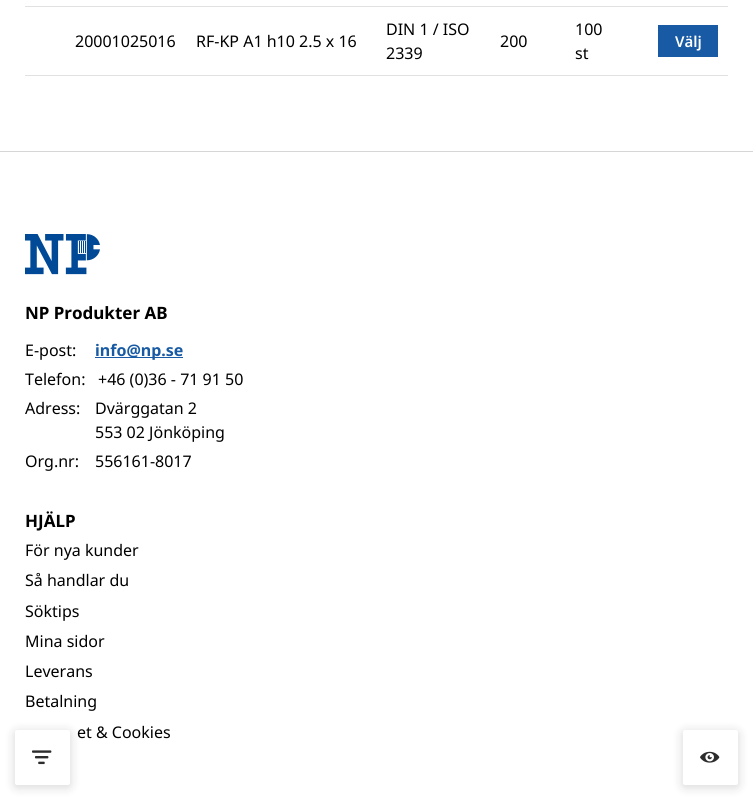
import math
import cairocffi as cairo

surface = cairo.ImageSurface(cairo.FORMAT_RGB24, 753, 800)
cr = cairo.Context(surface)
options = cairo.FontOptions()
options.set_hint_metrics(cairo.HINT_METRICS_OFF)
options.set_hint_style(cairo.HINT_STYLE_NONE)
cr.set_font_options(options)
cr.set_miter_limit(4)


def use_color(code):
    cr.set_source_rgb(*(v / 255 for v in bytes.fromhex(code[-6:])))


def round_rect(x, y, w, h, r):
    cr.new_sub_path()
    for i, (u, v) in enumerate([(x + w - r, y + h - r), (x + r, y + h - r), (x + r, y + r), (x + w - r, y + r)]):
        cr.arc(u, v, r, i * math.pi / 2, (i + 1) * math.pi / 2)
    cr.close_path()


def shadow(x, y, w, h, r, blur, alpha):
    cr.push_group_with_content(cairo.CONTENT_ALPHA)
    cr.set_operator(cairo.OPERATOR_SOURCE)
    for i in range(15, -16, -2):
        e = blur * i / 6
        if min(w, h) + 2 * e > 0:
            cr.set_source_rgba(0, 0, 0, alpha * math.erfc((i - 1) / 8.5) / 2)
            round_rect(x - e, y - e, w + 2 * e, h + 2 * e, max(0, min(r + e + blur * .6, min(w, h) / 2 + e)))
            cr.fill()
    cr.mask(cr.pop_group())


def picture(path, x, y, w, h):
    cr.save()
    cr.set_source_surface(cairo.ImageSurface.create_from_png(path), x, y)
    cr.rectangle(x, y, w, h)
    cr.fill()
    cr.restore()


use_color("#ffffff")
cr.paint()
use_color("#e1e1e1")
cr.rectangle(25, 75, 703, 1)
cr.fill()
cr.rectangle(25, 6, 703, 1)
cr.fill()
cr.select_font_face("Noto Sans")
cr.set_font_size(16)
use_color("#000000")
cr.move_to(75, 47)
cr.show_text("20001025016")
cr.move_to(196, 47)
cr.show_text("RF-KP A1 h10 2.5 x 16")
cr.move_to(386, 35)
cr.show_text("DIN 1 / ISO")
cr.move_to(386, 59)
cr.show_text("2339")
cr.move_to(500, 47)
cr.show_text("200")
cr.move_to(575, 35)
cr.show_text("100")
cr.move_to(575, 59)
cr.show_text("st")
use_color("#185aa4")
cr.rectangle(658, 25, 60, 32)
cr.fill()
cr.select_font_face("Noto Sans SemiBold")
cr.set_font_size(15)
use_color("#ffffff")
cr.move_to(675, 47)
cr.show_text("Välj")
use_color("#111111")
shadow(14, 731, 57, 57, 3, 5, 0.15)
use_color("#ffffff")
round_rect(15, 730, 55, 55, 2)
cr.fill()
picture("img1.png", 32, 750, 20, 15)
use_color("#111111")
shadow(682, 731, 57, 57, 3, 5, 0.15)
use_color("#ffffff")
round_rect(683, 730, 55, 55, 2)
cr.fill()
picture("img2.png", 700, 751, 20, 12)
use_color("#d6d6d6")
cr.rectangle(0, 151, 753, 1)
cr.fill()
picture("img3.png", 25, 234, 75, 41)
cr.select_font_face("Noto Sans", cairo.FONT_SLANT_NORMAL, cairo.FONT_WEIGHT_BOLD)
cr.set_font_size(17)
use_color("#000000")
cr.move_to(25, 319)
cr.show_text("NP Produkter AB")
cr.select_font_face("Noto Sans")
cr.set_font_size(16)
cr.move_to(25, 356)
cr.show_text("E-post:")
use_color("#185aa4")
cr.rectangle(95, 357, 88, 1)
cr.fill()
cr.select_font_face("Noto Sans", cairo.FONT_SLANT_NORMAL, cairo.FONT_WEIGHT_BOLD)
cr.move_to(95, 356)
cr.show_text("info@np.se")
cr.select_font_face("Noto Sans")
use_color("#000000")
cr.move_to(25, 385)
cr.show_text("Telefon:")
cr.move_to(98, 385)
cr.show_text("+46 (0)36 - 71 91 50")
cr.move_to(25, 414)
cr.show_text("Adress:")
cr.move_to(95, 414)
cr.show_text("Dvärggatan 2")
cr.move_to(95, 438)
cr.show_text("553 02 Jönköping")
cr.move_to(25, 467)
cr.show_text("Org.nr:")
cr.move_to(95, 467)
cr.show_text("556161-8017")
cr.select_font_face("Noto Sans", cairo.FONT_SLANT_NORMAL, cairo.FONT_WEIGHT_BOLD)
cr.set_font_size(17)
cr.move_to(25, 527)
cr.show_text("HJÄLP")
cr.select_font_face("Noto Sans")
cr.set_font_size(16)
cr.move_to(25, 556)
cr.show_text("För nya kunder")
cr.move_to(25, 586)
cr.show_text("Så handlar du")
cr.move_to(25, 617)
cr.show_text("Söktips")
cr.move_to(25, 647)
cr.show_text("Mina sidor")
cr.move_to(25, 677)
cr.show_text("Leverans")
cr.move_to(25, 707)
cr.show_text("Betalning")
cr.move_to(77, 738)
cr.show_text("et & Cookies")
surface.write_to_png("result.png")
